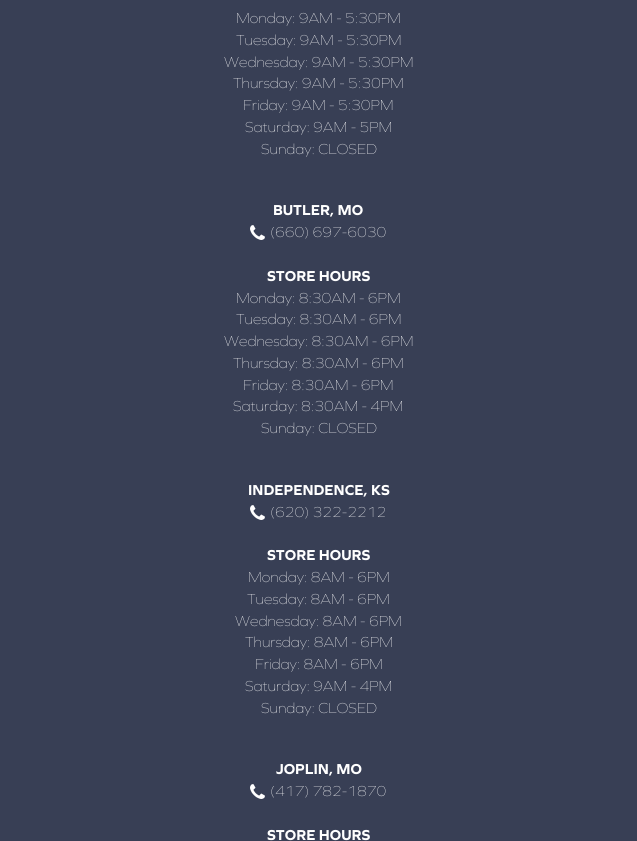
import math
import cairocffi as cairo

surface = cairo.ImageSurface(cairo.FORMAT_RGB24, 637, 841)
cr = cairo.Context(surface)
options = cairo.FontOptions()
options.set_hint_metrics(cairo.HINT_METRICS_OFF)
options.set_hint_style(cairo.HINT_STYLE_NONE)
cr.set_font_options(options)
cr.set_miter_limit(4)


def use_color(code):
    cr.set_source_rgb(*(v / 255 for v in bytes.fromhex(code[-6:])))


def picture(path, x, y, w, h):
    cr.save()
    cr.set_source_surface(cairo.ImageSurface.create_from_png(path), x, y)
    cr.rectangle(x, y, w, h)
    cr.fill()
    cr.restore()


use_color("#383f55")
cr.paint()
cr.select_font_face("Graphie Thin")
cr.set_font_size(15)
use_color("#ffffff")
cr.move_to(236, 23)
cr.show_text("Monday: 9AM - 5:30PM")
cr.move_to(236, 45)
cr.show_text("Tuesday: 9AM - 5:30PM")
cr.move_to(224, 67)
cr.show_text("Wednesday: 9AM - 5:30PM")
cr.move_to(233, 88)
cr.show_text("Thursday: 9AM - 5:30PM")
cr.move_to(243, 110)
cr.show_text("Friday: 9AM - 5:30PM")
cr.move_to(245, 132)
cr.show_text("Saturday: 9AM - 5PM")
cr.move_to(261, 154)
cr.show_text("Sunday: CLOSED")
cr.select_font_face("Graphie", cairo.FONT_SLANT_NORMAL, cairo.FONT_WEIGHT_BOLD)
cr.move_to(273, 215)
cr.show_text("BUTLER, MO")
picture("img1.png", 250, 225, 15, 15)
cr.select_font_face("Graphie Thin")
cr.move_to(270, 237)
cr.show_text("(660) 697-6030")
cr.select_font_face("Graphie", cairo.FONT_SLANT_NORMAL, cairo.FONT_WEIGHT_BOLD)
cr.move_to(267, 281)
cr.show_text("STORE HOURS")
cr.select_font_face("Graphie Thin")
cr.move_to(236, 303)
cr.show_text("Monday: 8:30AM - 6PM")
cr.move_to(236, 324)
cr.show_text("Tuesday: 8:30AM - 6PM")
cr.move_to(224, 346)
cr.show_text("Wednesday: 8:30AM - 6PM")
cr.move_to(233, 368)
cr.show_text("Thursday: 8:30AM - 6PM")
cr.move_to(243, 390)
cr.show_text("Friday: 8:30AM - 6PM")
cr.move_to(233, 411)
cr.show_text("Saturday: 8:30AM - 4PM")
cr.move_to(261, 433)
cr.show_text("Sunday: CLOSED")
cr.select_font_face("Graphie", cairo.FONT_SLANT_NORMAL, cairo.FONT_WEIGHT_BOLD)
cr.move_to(248, 495)
cr.show_text("INDEPENDENCE, KS")
picture("img1.png", 250, 505, 15, 15)
cr.select_font_face("Graphie Thin")
cr.move_to(270, 517)
cr.show_text("(620) 322-2212")
cr.select_font_face("Graphie", cairo.FONT_SLANT_NORMAL, cairo.FONT_WEIGHT_BOLD)
cr.move_to(267, 560)
cr.show_text("STORE HOURS")
cr.select_font_face("Graphie Thin")
cr.move_to(248, 582)
cr.show_text("Monday: 8AM - 6PM")
cr.move_to(247, 604)
cr.show_text("Tuesday: 8AM - 6PM")
cr.move_to(235, 626)
cr.show_text("Wednesday: 8AM - 6PM")
cr.move_to(245, 647)
cr.show_text("Thursday: 8AM - 6PM")
cr.move_to(255, 669)
cr.show_text("Friday: 8AM - 6PM")
cr.move_to(245, 691)
cr.show_text("Saturday: 9AM - 4PM")
cr.move_to(261, 713)
cr.show_text("Sunday: CLOSED")
cr.select_font_face("Graphie", cairo.FONT_SLANT_NORMAL, cairo.FONT_WEIGHT_BOLD)
cr.move_to(276, 774)
cr.show_text("JOPLIN, MO")
picture("img1.png", 250, 784, 15, 15)
cr.select_font_face("Graphie Thin")
cr.move_to(270, 796)
cr.show_text("(417) 782-1870")
cr.select_font_face("Graphie", cairo.FONT_SLANT_NORMAL, cairo.FONT_WEIGHT_BOLD)
cr.move_to(267, 840)
cr.show_text("STORE HOURS")
surface.write_to_png("result.png")
